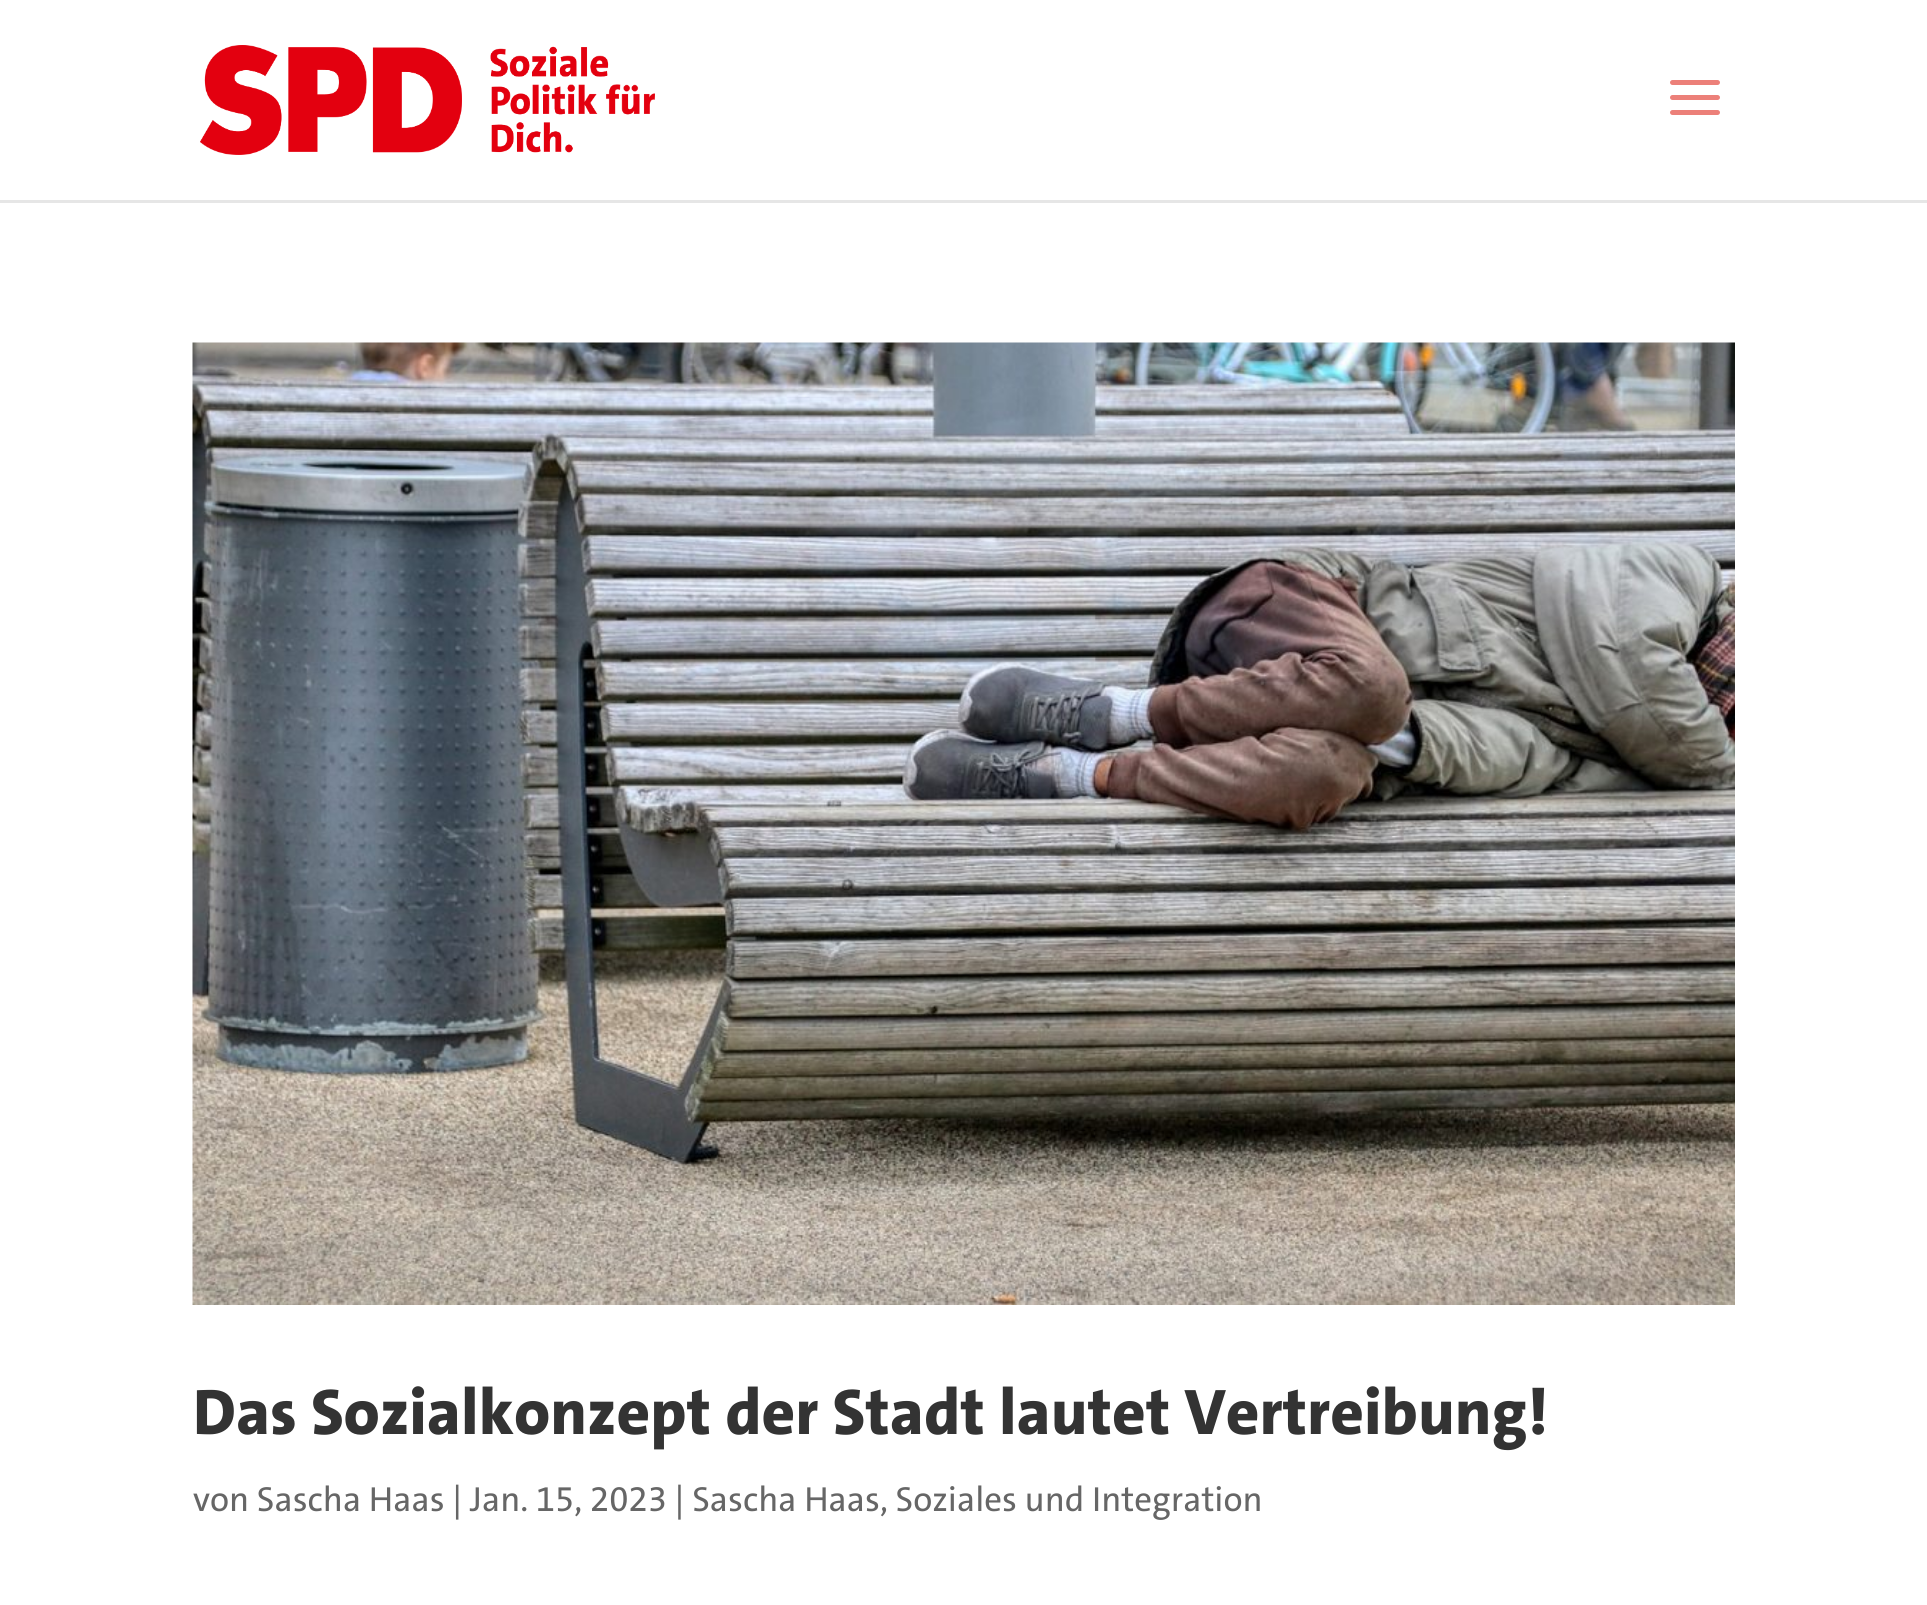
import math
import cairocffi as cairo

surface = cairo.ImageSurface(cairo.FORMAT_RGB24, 1927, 1605)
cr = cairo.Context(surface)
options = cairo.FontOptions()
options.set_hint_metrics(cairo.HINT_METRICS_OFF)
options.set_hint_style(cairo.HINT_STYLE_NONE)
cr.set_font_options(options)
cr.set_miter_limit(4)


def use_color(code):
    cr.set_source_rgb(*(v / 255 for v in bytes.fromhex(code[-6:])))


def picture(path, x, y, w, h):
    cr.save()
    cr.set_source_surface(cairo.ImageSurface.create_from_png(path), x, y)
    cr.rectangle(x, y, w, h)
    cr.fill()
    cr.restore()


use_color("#ffffff")
cr.paint()
use_color("#e6e6e6")
cr.new_path()
cr.move_to(0, 200)
cr.line_to(0, 203)
cr.line_to(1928, 203)
cr.line_to(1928, 3)
cr.line_to(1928, 200)
cr.close_path()
cr.fill()
picture("img1.png", 200, 45, 455, 110)
picture("img2.png", 1670, 80, 50, 35)
picture("img3.png", 192, 342, 1543, 963)
cr.select_font_face("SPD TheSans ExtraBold")
cr.set_font_size(65)
use_color("#333333")
cr.move_to(193, 1434)
cr.show_text("Das Sozialkonzept der Stadt lautet Vertreibung!")
cr.select_font_face("SPD TheSans")
cr.set_font_size(35)
use_color("#666666")
cr.move_to(193, 1511)
cr.show_text("von Sascha Haas | Jan. 15, 2023 | Sascha Haas, Soziales und Integration")
surface.write_to_png("result.png")
